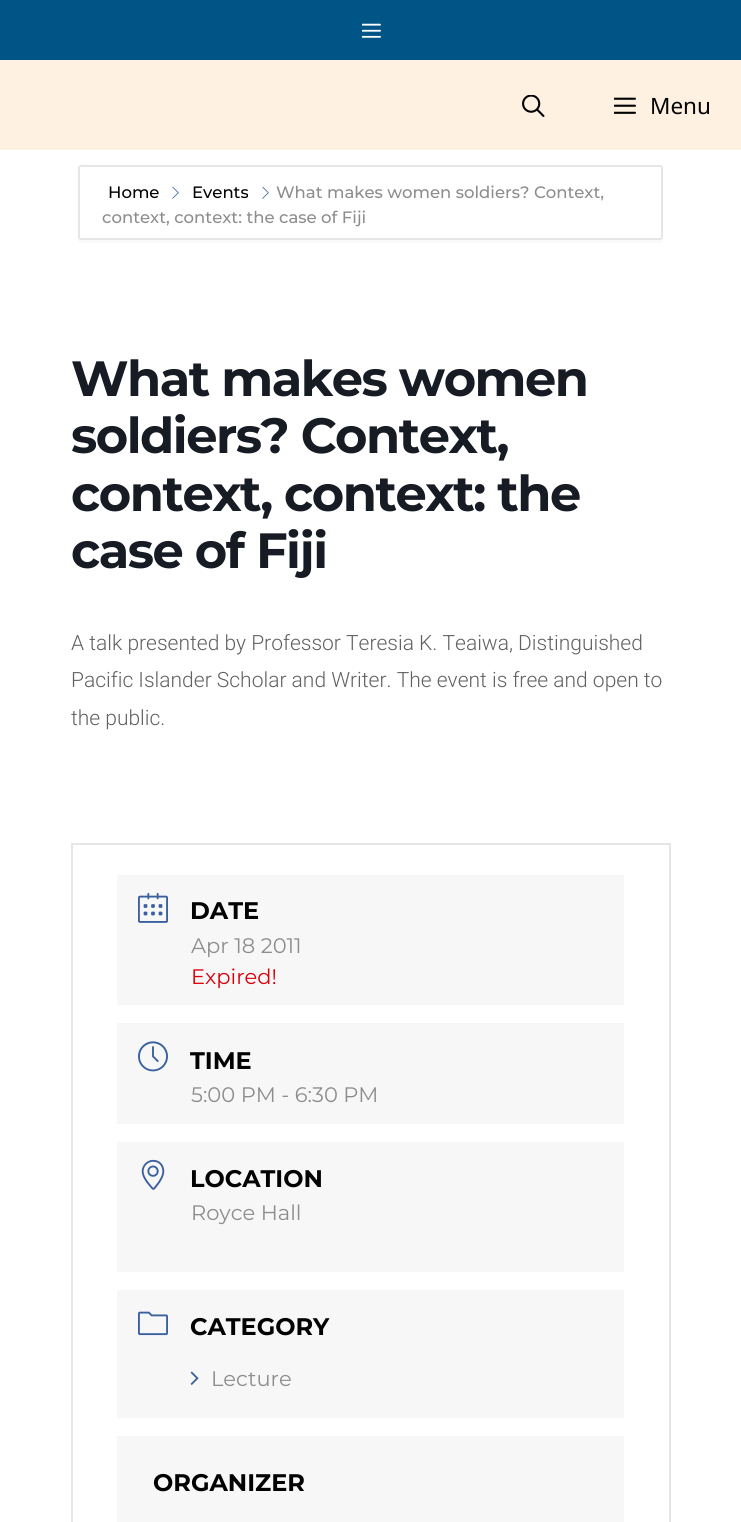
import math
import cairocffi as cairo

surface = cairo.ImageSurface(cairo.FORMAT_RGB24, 741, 1522)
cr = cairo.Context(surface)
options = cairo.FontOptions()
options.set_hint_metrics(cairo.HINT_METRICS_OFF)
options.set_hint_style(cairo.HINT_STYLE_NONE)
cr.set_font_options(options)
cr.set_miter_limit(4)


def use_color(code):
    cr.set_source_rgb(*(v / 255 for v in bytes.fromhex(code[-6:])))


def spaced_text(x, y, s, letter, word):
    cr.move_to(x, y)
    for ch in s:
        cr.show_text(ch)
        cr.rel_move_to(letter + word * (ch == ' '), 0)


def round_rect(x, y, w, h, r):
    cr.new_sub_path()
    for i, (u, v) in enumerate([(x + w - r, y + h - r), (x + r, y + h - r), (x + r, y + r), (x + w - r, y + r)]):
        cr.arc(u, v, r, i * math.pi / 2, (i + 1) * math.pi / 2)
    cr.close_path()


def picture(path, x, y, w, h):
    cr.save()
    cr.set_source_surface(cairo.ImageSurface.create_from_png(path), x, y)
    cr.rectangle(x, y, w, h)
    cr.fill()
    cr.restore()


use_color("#ffffff")
cr.paint()
use_color("#005587")
cr.rectangle(0, 0, 741, 60)
cr.fill()
picture("img1.png", 362, 23, 19, 15)
use_color("#fff1e1")
cr.rectangle(0, 60, 741, 90)
cr.fill()
picture("img2.png", 522, 95, 23, 22)
picture("img3.png", 614, 97, 22, 17)
cr.select_font_face("Noto Sans")
cr.set_font_size(22.5)
use_color("#020202")
cr.move_to(650, 114)
cr.show_text("Menu")
use_color("#f9f9f9")
cr.new_path()
cr.move_to(78, 237)
cr.line_to(78, 240)
cr.curve_to(78, 242, 79, 243, 81, 243)
cr.line_to(660, 243)
cr.curve_to(662, 243, 663, 242, 663, 240)
cr.line_to(663, 237)
cr.curve_to(663, 239, 662, 240, 660, 240)
cr.line_to(81, 240)
cr.curve_to(79, 240, 78, 239, 78, 237)
cr.close_path()
cr.fill()
round_rect(79, 166, 583, 73, 2)
use_color("#e6e6e6")
cr.stroke()
cr.select_font_face("Montserrat Medium")
cr.set_font_size(16.5)
use_color("#020202")
cr.move_to(108, 198)
cr.show_text("Home")
picture("img4.png", 172, 186, 7, 13)
cr.move_to(192, 198)
cr.show_text("Events")
picture("img4.png", 262, 186, 7, 13)
use_color("#8d8d8d")
cr.move_to(276, 198)
cr.show_text("What makes women soldiers? Context,")
cr.move_to(102, 223)
cr.show_text("context, context: the case of Fiji")
cr.select_font_face("Montserrat", cairo.FONT_SLANT_NORMAL, cairo.FONT_WEIGHT_BOLD)
cr.set_font_size(49.5)
use_color("#171c24")
spaced_text(71, 396, "What makes women", -1.5, 0)
spaced_text(71, 453, "soldiers? Context,", -1.5, 0)
spaced_text(71, 511, "context, context: the", -1.5, 0)
spaced_text(71, 568, "case of Fiji", -1.5, 0)
cr.select_font_face("Roboto Light")
cr.set_font_size(21)
use_color("#616161")
cr.move_to(71, 650)
cr.show_text("A talk presented by Professor Teresia K. Teaiwa, Distinguished")
cr.move_to(71, 687)
cr.show_text("Pacific Islander Scholar and Writer. The event is free and open to")
cr.move_to(71, 725)
cr.show_text("the public.")
cr.rectangle(72, 844, 598, 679)
use_color("#e6e6e6")
cr.stroke()
use_color("#f7f7f7")
cr.rectangle(117, 875, 507, 130)
cr.fill()
picture("img5.png", 138, 892, 30, 31)
cr.select_font_face("Montserrat", cairo.FONT_SLANT_NORMAL, cairo.FONT_WEIGHT_BOLD)
cr.set_font_size(24)
use_color("#020202")
cr.move_to(190, 919)
cr.show_text("DATE")
cr.select_font_face("Montserrat")
cr.set_font_size(21)
use_color("#8d8d8d")
cr.move_to(191, 953)
cr.show_text("Apr 18 2011")
use_color("#d8000c")
cr.move_to(191, 984)
cr.show_text("Expired!")
use_color("#f7f7f7")
cr.rectangle(117, 1023, 507, 101)
cr.fill()
picture("img6.png", 138, 1041, 30, 31)
cr.select_font_face("Montserrat", cairo.FONT_SLANT_NORMAL, cairo.FONT_WEIGHT_BOLD)
cr.set_font_size(24)
use_color("#020202")
cr.move_to(190, 1069)
cr.show_text("TIME")
cr.select_font_face("Montserrat")
cr.set_font_size(21)
use_color("#8d8d8d")
cr.move_to(191, 1102)
cr.show_text("5:00 PM - 6:30 PM")
use_color("#f7f7f7")
cr.rectangle(117, 1142, 507, 130)
cr.fill()
picture("img7.png", 141, 1159, 24, 31)
cr.select_font_face("Montserrat", cairo.FONT_SLANT_NORMAL, cairo.FONT_WEIGHT_BOLD)
cr.set_font_size(24)
use_color("#020202")
cr.move_to(190, 1187)
cr.show_text("LOCATION")
cr.select_font_face("Montserrat")
cr.set_font_size(21)
use_color("#8d8d8d")
cr.move_to(191, 1220)
cr.show_text("Royce Hall")
use_color("#f7f7f7")
cr.rectangle(117, 1290, 507, 128)
cr.fill()
picture("img8.png", 138, 1311, 30, 25)
cr.select_font_face("Montserrat", cairo.FONT_SLANT_NORMAL, cairo.FONT_WEIGHT_BOLD)
cr.set_font_size(24)
use_color("#020202")
cr.move_to(190, 1335)
cr.show_text("CATEGORY")
picture("img9.png", 190, 1371, 9, 14)
cr.select_font_face("Montserrat")
cr.set_font_size(21)
use_color("#8d8d8d")
cr.move_to(211, 1386)
cr.show_text("Lecture")
use_color("#f7f7f7")
cr.rectangle(117, 1436, 507, 86)
cr.fill()
cr.select_font_face("Montserrat", cairo.FONT_SLANT_NORMAL, cairo.FONT_WEIGHT_BOLD)
cr.set_font_size(24)
use_color("#020202")
cr.move_to(153, 1491)
cr.show_text("ORGANIZER")
surface.write_to_png("result.png")
